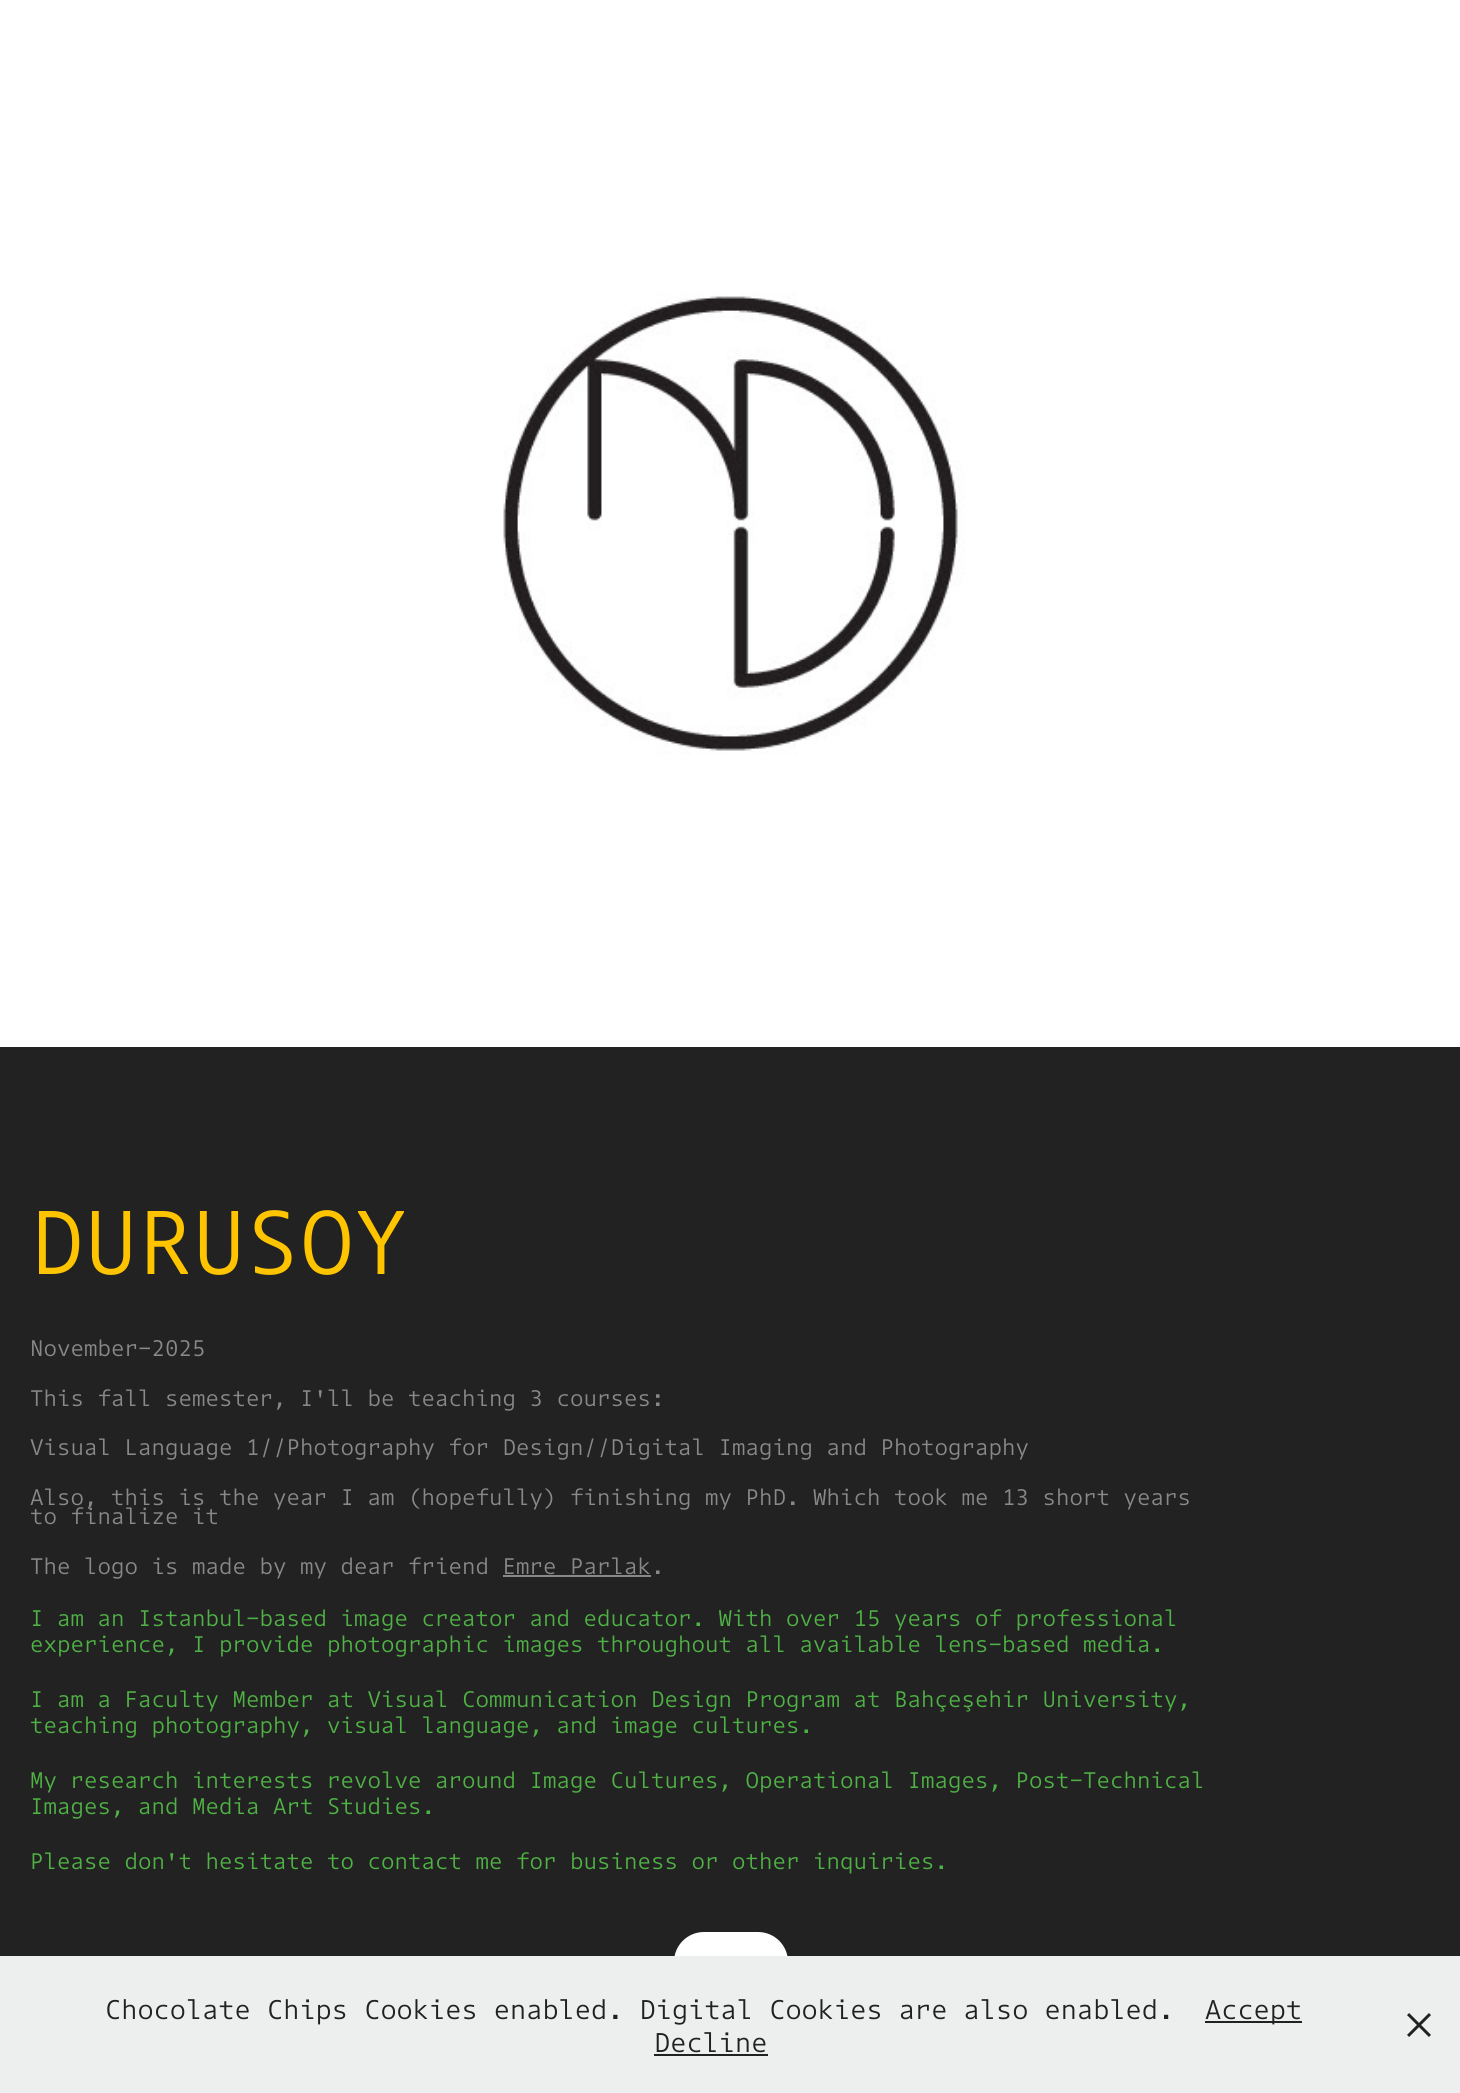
import math
import cairocffi as cairo

surface = cairo.ImageSurface(cairo.FORMAT_RGB24, 1460, 2093)
cr = cairo.Context(surface)
options = cairo.FontOptions()
options.set_hint_metrics(cairo.HINT_METRICS_OFF)
options.set_hint_style(cairo.HINT_STYLE_NONE)
cr.set_font_options(options)
cr.set_miter_limit(4)


def use_color(code):
    cr.set_source_rgb(*(v / 255 for v in bytes.fromhex(code[-6:])))


def round_rect(x, y, w, h, r):
    cr.new_sub_path()
    for i, (u, v) in enumerate([(x + w - r, y + h - r), (x + r, y + h - r), (x + r, y + r), (x + w - r, y + r)]):
        cr.arc(u, v, r, i * math.pi / 2, (i + 1) * math.pi / 2)
    cr.close_path()


def picture(path, x, y, w, h):
    cr.save()
    cr.set_source_surface(cairo.ImageSurface.create_from_png(path), x, y)
    cr.rectangle(x, y, w, h)
    cr.fill()
    cr.restore()


use_color("#222222")
cr.paint()
picture("img1.png", 0, 0, 1460, 1047)
cr.select_font_face("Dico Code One")
cr.set_font_size(90)
use_color("#ffc400")
cr.move_to(30, 1274)
cr.show_text("DURUSOY")
cr.set_font_size(22.5)
use_color("#898989")
cr.move_to(30, 1356)
cr.show_text("November-2025")
cr.move_to(30, 1406)
cr.show_text("This fall semester, I'll be teaching 3 courses:")
cr.move_to(30, 1455)
cr.show_text("Visual Language 1//Photography for Design//Digital Imaging and Photography")
cr.move_to(30, 1505)
cr.show_text("Also, this is the year I am (hopefully) finishing my PhD. Which took me 13 short years")
cr.move_to(30, 1524)
cr.show_text("to finalize it")
cr.move_to(30, 1574)
cr.show_text("The logo is made by my dear friend Emre Parlak.")
cr.rectangle(503, 1575, 148, 2)
cr.fill()
use_color("#4fb245")
cr.move_to(30, 1626)
cr.show_text("I am an Istanbul-based image creator and educator. With over 15 years of professional")
cr.move_to(30, 1652)
cr.show_text("experience, I provide photographic images throughout all available lens-based media.")
cr.move_to(30, 1707)
cr.show_text("I am a Faculty Member at Visual Communication Design Program at Bahçeşehir University,")
cr.move_to(30, 1733)
cr.show_text("teaching photography, visual language, and image cultures.")
cr.move_to(30, 1788)
cr.show_text("My research interests revolve around Image Cultures, Operational Images, Post-Technical")
cr.move_to(30, 1814)
cr.show_text("Images, and Media Art Studies.")
cr.move_to(30, 1869)
cr.show_text("Please don't hesitate to contact me for business or other inquiries.")
use_color("#ffffff")
round_rect(674, 1932, 114, 60, 30)
cr.fill()
use_color("#edeeee")
cr.rectangle(0, 1956, 1460, 137)
cr.fill()
cr.set_font_size(27)
use_color("#212121")
cr.move_to(105, 2019)
cr.show_text("Chocolate Chips Cookies enabled. Digital Cookies are also enabled.")
cr.rectangle(1205, 2021, 97, 2)
cr.fill()
cr.move_to(1205, 2019)
cr.show_text("Accept")
cr.move_to(654, 2052)
cr.show_text("Decline")
cr.rectangle(654, 2054, 114, 2)
cr.fill()
picture("img2.png", 1407, 2013, 24, 24)
surface.write_to_png("result.png")
